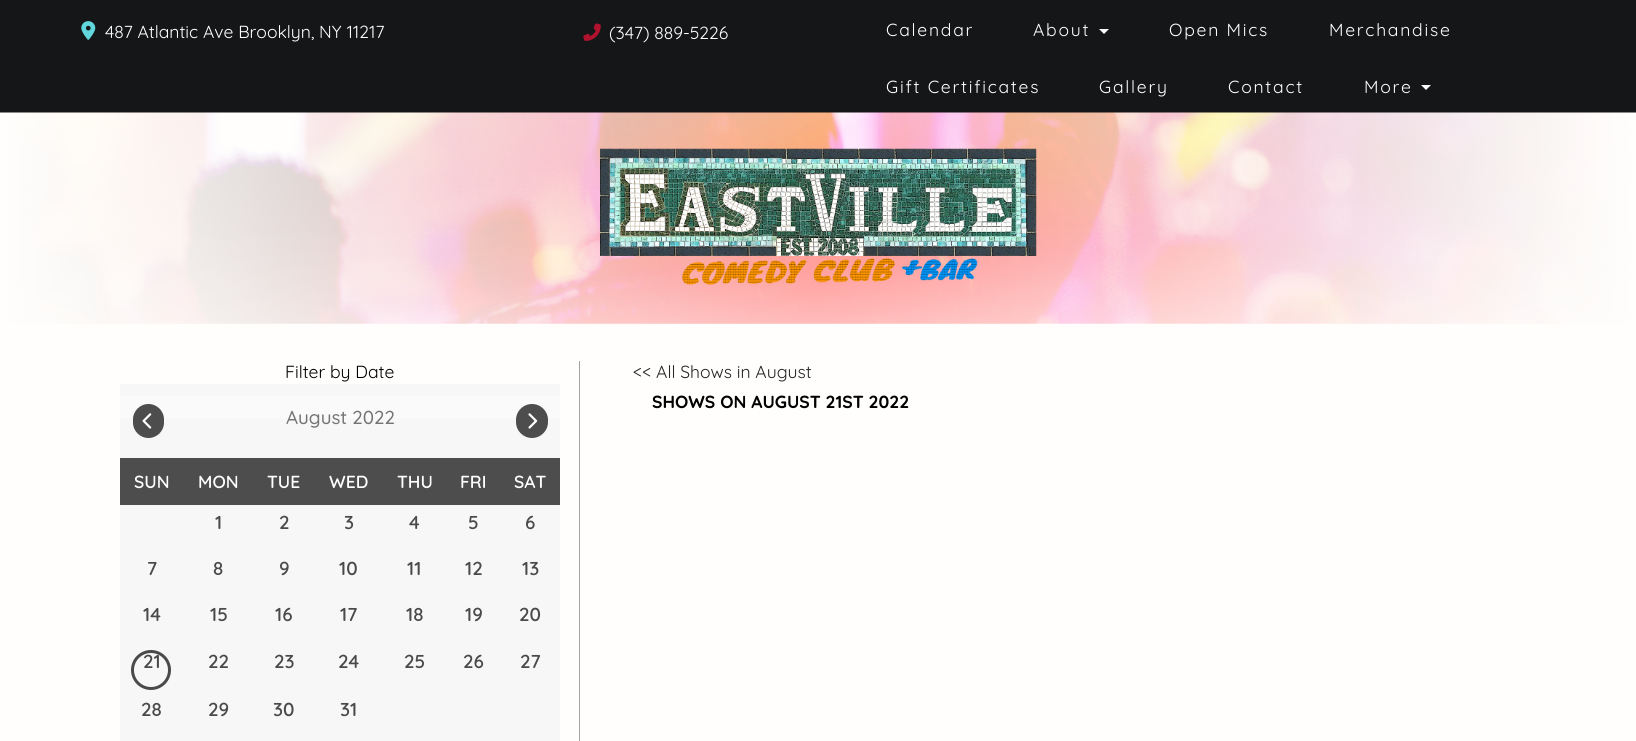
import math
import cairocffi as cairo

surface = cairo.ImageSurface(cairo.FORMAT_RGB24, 1636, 741)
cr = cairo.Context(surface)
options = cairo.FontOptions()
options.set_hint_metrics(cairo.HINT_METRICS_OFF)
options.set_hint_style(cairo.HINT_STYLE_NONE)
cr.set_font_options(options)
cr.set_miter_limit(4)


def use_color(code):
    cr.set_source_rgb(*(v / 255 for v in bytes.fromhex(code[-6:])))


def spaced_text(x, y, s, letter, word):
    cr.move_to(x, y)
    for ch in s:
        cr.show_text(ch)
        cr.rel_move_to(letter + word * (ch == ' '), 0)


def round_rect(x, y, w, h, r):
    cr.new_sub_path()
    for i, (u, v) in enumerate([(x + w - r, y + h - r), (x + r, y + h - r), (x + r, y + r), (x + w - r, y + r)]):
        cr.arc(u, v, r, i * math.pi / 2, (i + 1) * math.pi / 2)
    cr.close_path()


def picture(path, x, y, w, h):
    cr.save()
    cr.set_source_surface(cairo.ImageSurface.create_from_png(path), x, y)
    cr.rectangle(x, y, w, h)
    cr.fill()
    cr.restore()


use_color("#fffefc")
cr.paint()
use_color("#141617")
cr.rectangle(0, 0, 1636, 113)
cr.fill()
picture("img1.png", 81, 21, 15, 19)
cr.select_font_face("Quicksand")
cr.set_font_size(17.5)
use_color("#ffffff")
cr.move_to(105, 38)
cr.show_text("487 Atlantic Ave Brooklyn, NY 11217")
picture("img2.png", 583, 23, 18, 18)
cr.move_to(609, 39)
cr.show_text("(347) 889-5226")
spaced_text(886, 36, "Calendar", 1.75, 0)
spaced_text(1033, 36, "About", 1.75, 0)
cr.new_path()
cr.move_to(1099, 29)
cr.line_to(1109, 29)
cr.line_to(1104, 34)
cr.close_path()
cr.fill()
spaced_text(1169, 36, "Open Mics", 1.75, 0)
spaced_text(1329, 36, "Merchandise", 1.75, 0)
spaced_text(886, 93, "Gift Certificates", 1.75, 0)
spaced_text(1099, 93, "Gallery", 1.75, 0)
spaced_text(1228, 93, "Contact", 1.75, 0)
spaced_text(1364, 93, "More", 1.75, 0)
cr.new_path()
cr.move_to(1421, 85)
cr.line_to(1431, 85)
cr.line_to(1426, 90)
cr.close_path()
cr.fill()
picture("img3.png", 0, 112, 1636, 212)
picture("img4.png", 600, 148, 437, 137)
use_color("#000000")
cr.move_to(285, 378)
cr.show_text("Filter by Date")
use_color("#f7f7f7")
cr.rectangle(120, 384, 440, 357)
cr.fill()
use_color("#fafafa")
cr.rectangle(120, 396, 440, 22)
cr.fill()
use_color("#4d4d4d")
round_rect(133, 404, 31, 34, 15.5)
cr.fill()
picture("img5.png", 142, 413, 10, 16)
round_rect(516, 404, 32, 34, 16)
cr.fill()
picture("img6.png", 528, 413, 10, 16)
cr.select_font_face("Quicksand Medium")
cr.set_font_size(18.75)
use_color("#747474")
cr.move_to(286, 424)
cr.show_text("August 2022")
use_color("#4d4d4d")
cr.rectangle(120, 458, 440, 47)
cr.fill()
cr.select_font_face("Quicksand SemiBold")
cr.set_font_size(17.5)
use_color("#ffffff")
cr.move_to(134, 488)
cr.show_text("SUN")
cr.move_to(198, 488)
cr.show_text("MON")
cr.move_to(267, 488)
cr.show_text("TUE")
cr.move_to(329, 488)
cr.show_text("WED")
cr.move_to(397, 488)
cr.show_text("THU")
cr.move_to(460, 488)
cr.show_text("FRI")
cr.move_to(514, 488)
cr.show_text("SAT")
cr.set_font_size(18.75)
use_color("#4a4a4a")
cr.move_to(215, 529)
cr.show_text("1")
cr.move_to(279, 529)
cr.show_text("2")
cr.move_to(344, 529)
cr.show_text("3")
cr.move_to(409, 529)
cr.show_text("4")
cr.move_to(468, 529)
cr.show_text("5")
cr.move_to(525, 529)
cr.show_text("6")
cr.move_to(147, 575)
cr.show_text("7")
cr.move_to(213, 575)
cr.show_text("8")
cr.move_to(279, 575)
cr.show_text("9")
cr.move_to(339, 575)
cr.show_text("10")
cr.move_to(407, 575)
cr.show_text("11")
cr.move_to(465, 575)
cr.show_text("12")
cr.move_to(522, 575)
cr.show_text("13")
cr.move_to(143, 621)
cr.show_text("14")
cr.move_to(210, 621)
cr.show_text("15")
cr.move_to(275, 621)
cr.show_text("16")
cr.move_to(340, 621)
cr.show_text("17")
cr.move_to(406, 621)
cr.show_text("18")
cr.move_to(465, 621)
cr.show_text("19")
cr.move_to(519, 621)
cr.show_text("20")
cr.new_path()
cr.arc(151, 670, 18.5, 0, 2 * math.pi)
cr.set_line_width(3)
cr.stroke()
cr.move_to(143, 668)
cr.show_text("21")
cr.move_to(208, 668)
cr.show_text("22")
cr.move_to(274, 668)
cr.show_text("23")
cr.move_to(338, 668)
cr.show_text("24")
cr.move_to(404, 668)
cr.show_text("25")
cr.move_to(463, 668)
cr.show_text("26")
cr.move_to(520, 668)
cr.show_text("27")
cr.move_to(141, 716)
cr.show_text("28")
cr.move_to(208, 716)
cr.show_text("29")
cr.move_to(273, 716)
cr.show_text("30")
cr.move_to(340, 716)
cr.show_text("31")
use_color("#a1a1a1")
cr.rectangle(579, 361, 1, 380)
cr.fill()
cr.select_font_face("Quicksand")
cr.set_font_size(17.5)
use_color("#252525")
cr.move_to(633, 378)
cr.show_text("<< All Shows in August")
cr.select_font_face("Quicksand", cairo.FONT_SLANT_NORMAL, cairo.FONT_WEIGHT_BOLD)
use_color("#000000")
cr.move_to(652, 408)
cr.show_text("SHOWS ON AUGUST 21ST 2022")
surface.write_to_png("result.png")
